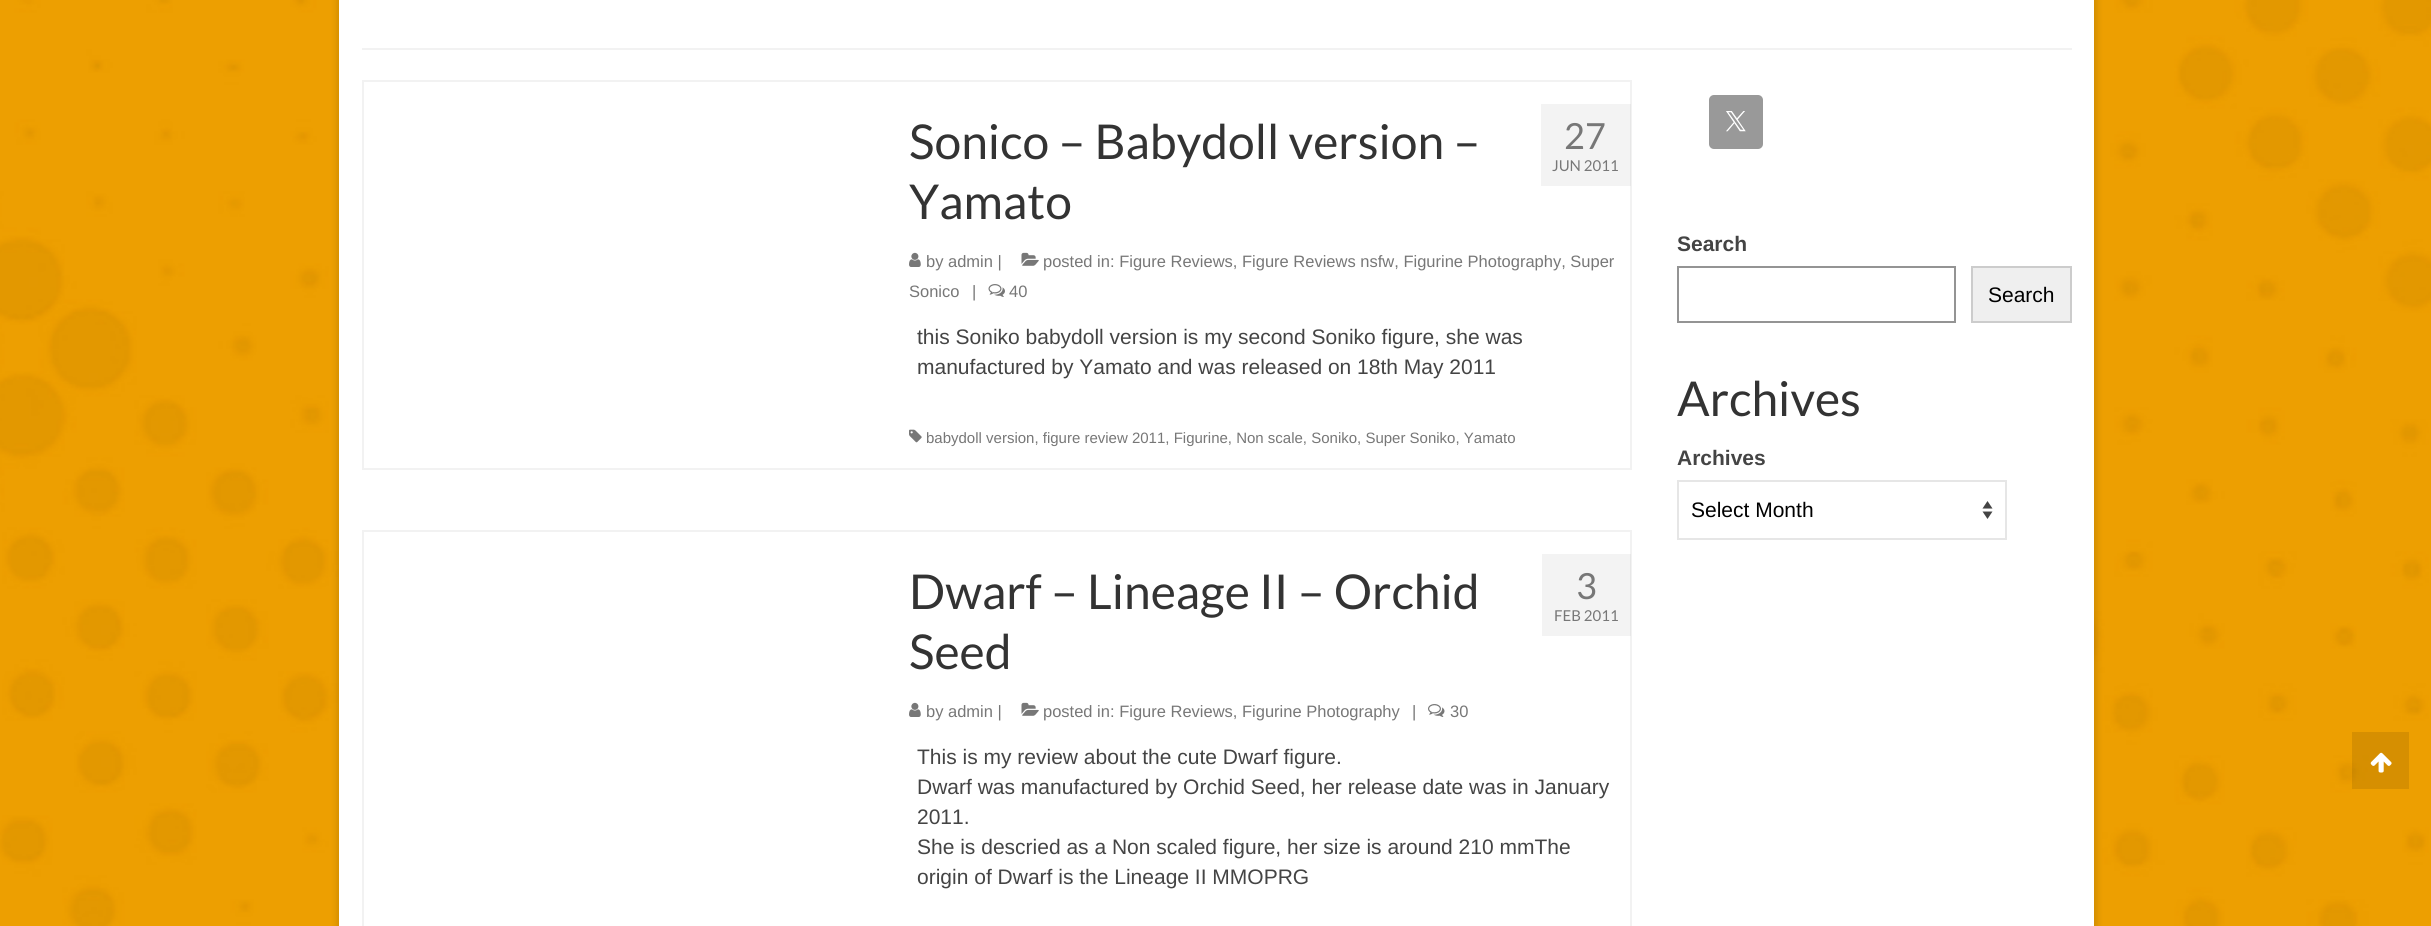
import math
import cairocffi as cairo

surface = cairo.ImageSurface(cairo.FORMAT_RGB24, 2431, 926)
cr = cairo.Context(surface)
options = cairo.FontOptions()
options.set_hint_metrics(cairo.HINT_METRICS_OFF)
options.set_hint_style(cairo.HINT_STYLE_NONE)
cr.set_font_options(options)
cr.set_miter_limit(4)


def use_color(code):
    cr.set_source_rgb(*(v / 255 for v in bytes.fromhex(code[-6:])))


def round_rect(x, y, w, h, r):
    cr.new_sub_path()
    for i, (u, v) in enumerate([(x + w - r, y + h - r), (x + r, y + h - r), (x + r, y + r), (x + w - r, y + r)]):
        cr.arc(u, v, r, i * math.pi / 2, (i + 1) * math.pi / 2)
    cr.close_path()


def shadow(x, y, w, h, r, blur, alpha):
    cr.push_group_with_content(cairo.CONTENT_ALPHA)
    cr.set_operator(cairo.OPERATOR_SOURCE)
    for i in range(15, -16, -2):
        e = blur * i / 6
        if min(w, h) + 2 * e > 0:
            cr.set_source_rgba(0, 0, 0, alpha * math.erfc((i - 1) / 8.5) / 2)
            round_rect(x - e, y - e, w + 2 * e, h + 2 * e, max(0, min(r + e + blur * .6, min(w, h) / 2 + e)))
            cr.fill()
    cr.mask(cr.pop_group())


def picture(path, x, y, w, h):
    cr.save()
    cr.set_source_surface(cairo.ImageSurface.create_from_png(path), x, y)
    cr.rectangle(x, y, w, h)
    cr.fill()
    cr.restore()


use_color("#ffffff")
cr.paint()
picture("img1.png", 0, 0, 2431, 926)
use_color("#000000")
shadow(338, -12, 1758, 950, 0, 4, 0.16)
use_color("#ffffff")
cr.rectangle(339, 0, 1755, 926)
cr.fill()
use_color("#f2f2f2")
cr.rectangle(362, 48, 1710, 2)
cr.fill()
cr.rectangle(363, 81, 1268, 388)
cr.stroke()
cr.set_source_rgba(0, 0, 0, 0.05)
cr.rectangle(1541, 104, 90, 82)
cr.fill()
cr.select_font_face("Lato")
cr.set_font_size(36)
use_color("#777777")
cr.move_to(1564, 149)
cr.show_text("27")
cr.set_font_size(15)
cr.move_to(1552, 171)
cr.show_text("JUN 2011")
cr.set_font_size(48)
use_color("#333333")
cr.move_to(909, 159)
cr.show_text("Sonico – Babydoll version –")
cr.move_to(909, 219)
cr.show_text("Yamato")
picture("img2.png", 1021, 252, 18, 14)
cr.select_font_face("Liberation Sans")
cr.set_font_size(16.5)
use_color("#777777")
cr.move_to(1043, 267)
cr.show_text("posted in: Figure Reviews, Figure Reviews nsfw, Figurine Photography, Super")
cr.move_to(909, 297)
cr.show_text("Sonico")
picture("img3.png", 909, 252, 12, 15)
cr.move_to(926, 267)
cr.show_text("by admin |")
cr.move_to(972, 297)
cr.show_text("|")
picture("img4.png", 988, 284, 17, 13)
cr.move_to(1009, 297)
cr.show_text("40")
cr.set_font_size(21)
use_color("#444444")
cr.move_to(917, 344)
cr.show_text("this Soniko babydoll version is my second Soniko figure, she was")
cr.move_to(917, 374)
cr.show_text("manufactured by Yamato and was released on 18th May 2011")
picture("img5.png", 909, 429, 13, 14)
cr.set_font_size(15)
use_color("#777777")
cr.move_to(926, 443)
cr.show_text("babydoll version, figure review 2011, Figurine, Non scale, Soniko, Super Soniko, Yamato")
cr.rectangle(363, 531, 1268, 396)
use_color("#f2f2f2")
cr.stroke()
cr.select_font_face("Lato")
cr.set_font_size(48)
use_color("#333333")
cr.move_to(909, 609)
cr.show_text("Dwarf – Lineage II – Orchid")
cr.move_to(909, 669)
cr.show_text("Seed")
picture("img3.png", 909, 702, 12, 15)
cr.select_font_face("Liberation Sans")
cr.set_font_size(16.5)
use_color("#777777")
cr.move_to(926, 717)
cr.show_text("by admin |")
picture("img2.png", 1021, 702, 18, 14)
cr.move_to(1043, 717)
cr.show_text("posted in: Figure Reviews, Figurine Photography")
cr.move_to(1412, 717)
cr.show_text("|")
picture("img6.png", 1428, 704, 17, 13)
cr.move_to(1450, 717)
cr.show_text("30")
cr.set_source_rgba(0, 0, 0, 0.05)
cr.rectangle(1542, 554, 89, 82)
cr.fill()
cr.select_font_face("Lato")
cr.set_font_size(36)
use_color("#777777")
cr.move_to(1576, 599)
cr.show_text("3")
cr.set_font_size(15)
cr.move_to(1554, 621)
cr.show_text("FEB 2011")
cr.select_font_face("Liberation Sans")
cr.set_font_size(21)
use_color("#444444")
cr.move_to(917, 764)
cr.show_text("This is my review about the cute Dwarf figure.")
cr.move_to(917, 794)
cr.show_text("Dwarf was manufactured by Orchid Seed, her release date was in January")
cr.move_to(917, 824)
cr.show_text("2011.")
cr.move_to(917, 854)
cr.show_text("She is descried as a Non scaled figure, her size is around 210 mmThe")
cr.move_to(917, 884)
cr.show_text("origin of Dwarf is the Lineage II MMOPRG")
use_color("#999999")
round_rect(1709, 95, 54, 54, 5)
cr.fill()
picture("img7.png", 1726, 111, 20, 21)
cr.select_font_face("Liberation Sans", cairo.FONT_SLANT_NORMAL, cairo.FONT_WEIGHT_BOLD)
use_color("#444444")
cr.move_to(1677, 251)
cr.show_text("Search")
cr.rectangle(1678, 267, 277, 55)
use_color("#949494")
cr.stroke()
use_color("#efefef")
cr.rectangle(1972, 267, 99, 55)
cr.fill_preserve()
use_color("#cccccc")
cr.stroke()
cr.select_font_face("Liberation Sans")
use_color("#000000")
cr.move_to(1988, 302)
cr.show_text("Search")
cr.select_font_face("Lato")
cr.set_font_size(48)
use_color("#333333")
cr.move_to(1677, 416)
cr.show_text("Archives")
cr.select_font_face("Liberation Sans", cairo.FONT_SLANT_NORMAL, cairo.FONT_WEIGHT_BOLD)
cr.set_font_size(21)
use_color("#444444")
cr.move_to(1677, 465)
cr.show_text("Archives")
cr.new_path()
cr.move_to(1982.5, 508.5)
cr.line_to(1987.5, 501)
cr.line_to(1992.5, 508.5)
cr.close_path()
cr.move_to(1992.5, 511.5)
cr.line_to(1987.5, 519)
cr.line_to(1982.5, 511.5)
cr.close_path()
cr.fill()
cr.rectangle(1678, 481, 328, 58)
use_color("#e6e6e6")
cr.stroke()
cr.select_font_face("Liberation Sans")
use_color("#000000")
cr.move_to(1691, 517)
cr.show_text("Select Month")
cr.set_source_rgba(0, 0, 0, 0.1)
cr.rectangle(2352, 732, 57, 57)
cr.fill()
picture("img8.png", 2370, 752, 22, 21)
surface.write_to_png("result.png")
